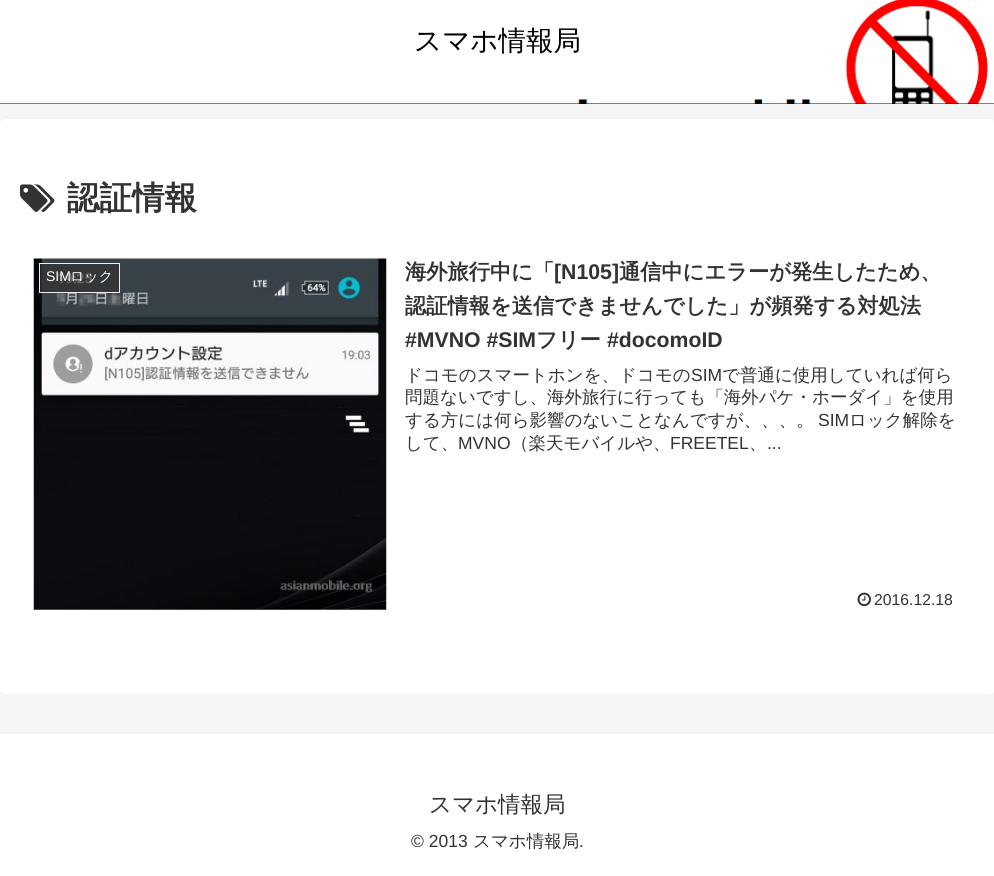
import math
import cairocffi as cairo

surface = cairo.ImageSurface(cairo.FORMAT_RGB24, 994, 876)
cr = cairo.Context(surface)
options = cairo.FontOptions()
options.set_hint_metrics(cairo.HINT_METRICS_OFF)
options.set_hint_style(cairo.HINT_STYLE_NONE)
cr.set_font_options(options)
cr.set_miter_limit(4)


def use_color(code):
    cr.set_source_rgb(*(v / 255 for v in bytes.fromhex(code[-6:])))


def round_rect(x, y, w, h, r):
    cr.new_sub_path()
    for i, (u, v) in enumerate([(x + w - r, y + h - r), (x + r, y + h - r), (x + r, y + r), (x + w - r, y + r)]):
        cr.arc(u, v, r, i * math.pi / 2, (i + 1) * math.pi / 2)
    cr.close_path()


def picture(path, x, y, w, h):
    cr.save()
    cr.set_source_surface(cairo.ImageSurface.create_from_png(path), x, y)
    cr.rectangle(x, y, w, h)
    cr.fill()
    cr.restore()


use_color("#f4f5f7")
cr.paint()
use_color("#000000")
cr.rectangle(0, 103, 994, 1)
cr.fill()
picture("img1.png", 0, 0, 994, 104)
cr.select_font_face("WenQuanYi Zen Hei Medium")
cr.set_font_size(27.5)
cr.move_to(414, 50)
cr.show_text("スマホ情報局")
use_color("#ffffff")
round_rect(0, 119, 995, 575, 5)
cr.fill()
picture("img2.png", 20, 184, 35, 28)
cr.select_font_face("WenQuanYi Zen Hei", cairo.FONT_SLANT_NORMAL, cairo.FONT_WEIGHT_BOLD)
cr.set_font_size(32.5)
use_color("#333333")
cr.move_to(67, 209)
cr.show_text("認証情報")
picture("img3.png", 33, 258, 354, 352)
cr.set_source_rgba(0.2, 0.2, 0.2, 0.7)
cr.rectangle(39.5, 263.5, 80, 29)
cr.fill_preserve()
use_color("#eeeeee")
cr.set_line_width(1)
cr.stroke()
cr.select_font_face("Liberation Sans")
cr.set_font_size(14)
use_color("#ffffff")
cr.move_to(46, 281)
cr.show_text("SIM")
cr.select_font_face("WenQuanYi Zen Hei Medium")
cr.move_to(70, 281)
cr.show_text("ロック")
cr.select_font_face("WenQuanYi Zen Hei", cairo.FONT_SLANT_NORMAL, cairo.FONT_WEIGHT_BOLD)
cr.set_font_size(21.25)
use_color("#333333")
cr.move_to(405, 279)
cr.show_text("海外旅行中に「")
cr.select_font_face("Liberation Sans", cairo.FONT_SLANT_NORMAL, cairo.FONT_WEIGHT_BOLD)
cr.move_to(554, 279)
cr.show_text("[N105]")
cr.select_font_face("WenQuanYi Zen Hei", cairo.FONT_SLANT_NORMAL, cairo.FONT_WEIGHT_BOLD)
cr.move_to(619, 279)
cr.show_text("通信中にエラーが発生したため、")
cr.move_to(405, 313)
cr.show_text("認証情報を送信できませんでした」が頻発する対処法")
cr.select_font_face("Liberation Sans", cairo.FONT_SLANT_NORMAL, cairo.FONT_WEIGHT_BOLD)
cr.move_to(405, 347)
cr.show_text("#MVNO #SIM")
cr.select_font_face("WenQuanYi Zen Hei", cairo.FONT_SLANT_NORMAL, cairo.FONT_WEIGHT_BOLD)
cr.move_to(536, 347)
cr.show_text("フリー")
cr.select_font_face("Liberation Sans", cairo.FONT_SLANT_NORMAL, cairo.FONT_WEIGHT_BOLD)
cr.move_to(607, 347)
cr.show_text("#docomoID")
cr.select_font_face("WenQuanYi Zen Hei Medium")
cr.set_font_size(17.5)
cr.move_to(405, 381)
cr.show_text("ドコモのスマートホンを、ドコモの")
cr.select_font_face("Liberation Sans")
cr.move_to(691, 381)
cr.show_text("SIM")
cr.select_font_face("WenQuanYi Zen Hei Medium")
cr.move_to(722, 381)
cr.show_text("で普通に使用していれば何ら")
cr.move_to(405, 403)
cr.show_text("問題ないですし、海外旅行に行っても「海外パケ・ホーダイ」を使用")
cr.move_to(405, 426)
cr.show_text("する方には何ら影響のないことなんですが、、、。")
cr.select_font_face("Liberation Sans")
cr.move_to(818, 426)
cr.show_text("SIM")
cr.select_font_face("WenQuanYi Zen Hei Medium")
cr.move_to(849, 426)
cr.show_text("ロック解除を")
cr.move_to(405, 449)
cr.show_text("して、")
cr.select_font_face("Liberation Sans")
cr.move_to(458, 449)
cr.show_text("MVNO")
cr.select_font_face("WenQuanYi Zen Hei Medium")
cr.move_to(511, 449)
cr.show_text("（楽天モバイルや、")
cr.select_font_face("Liberation Sans")
cr.move_to(670, 449)
cr.show_text("FREETEL")
cr.select_font_face("WenQuanYi Zen Hei Medium")
cr.move_to(749, 449)
cr.show_text("、")
cr.select_font_face("Liberation Sans")
cr.move_to(767, 449)
cr.show_text("...")
picture("img4.png", 857, 592, 14, 15)
cr.set_font_size(15.75)
cr.move_to(874, 605)
cr.show_text("2016.12.18")
use_color("#ffffff")
cr.rectangle(0, 734, 994, 142)
cr.fill()
cr.select_font_face("WenQuanYi Zen Hei Medium")
cr.set_font_size(22.5)
use_color("#333333")
cr.move_to(429, 812)
cr.show_text("スマホ情報局")
cr.select_font_face("Liberation Sans")
cr.set_font_size(17.5)
cr.move_to(411, 847)
cr.show_text("© 2013")
cr.select_font_face("WenQuanYi Zen Hei Medium")
cr.move_to(473, 847)
cr.show_text("スマホ情報局")
cr.select_font_face("Liberation Sans")
cr.move_to(579, 847)
cr.show_text(".")
surface.write_to_png("result.png")
